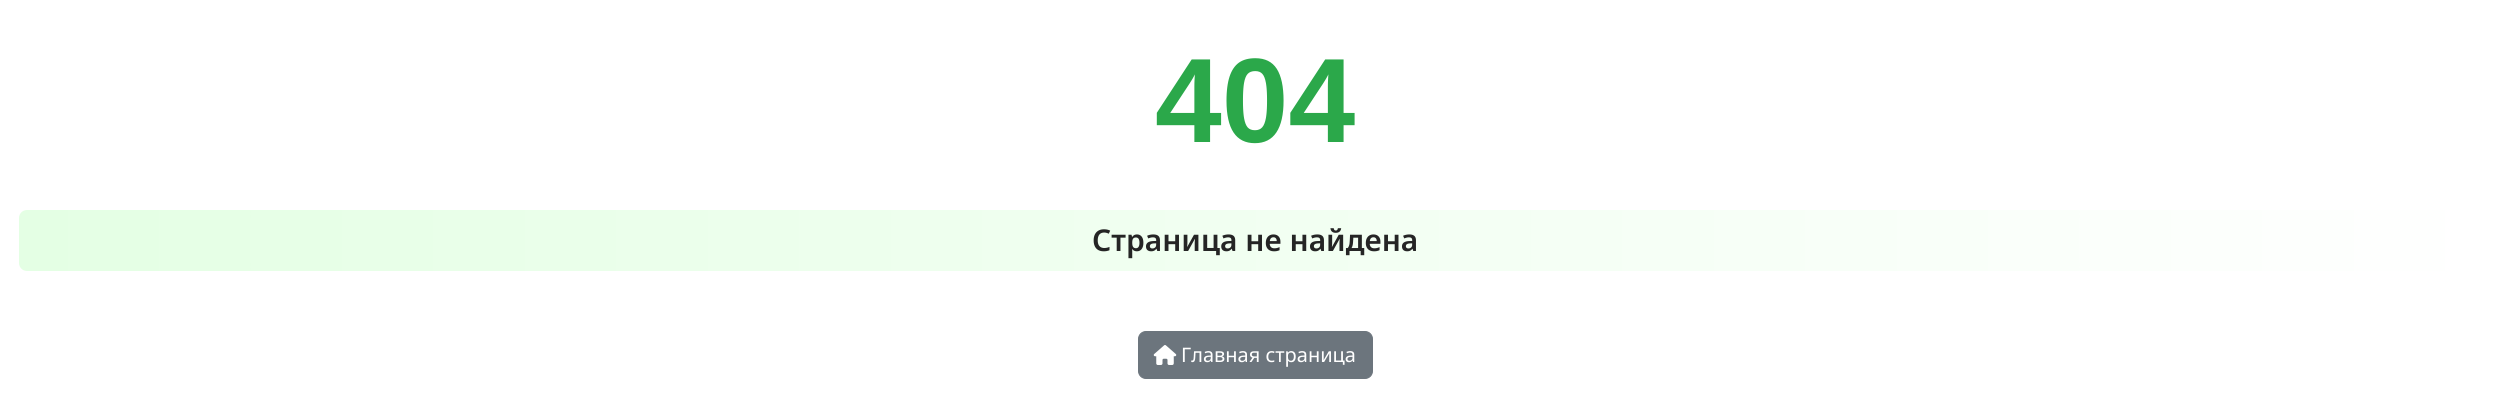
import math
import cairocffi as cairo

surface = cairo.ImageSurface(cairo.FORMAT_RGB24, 2510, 406)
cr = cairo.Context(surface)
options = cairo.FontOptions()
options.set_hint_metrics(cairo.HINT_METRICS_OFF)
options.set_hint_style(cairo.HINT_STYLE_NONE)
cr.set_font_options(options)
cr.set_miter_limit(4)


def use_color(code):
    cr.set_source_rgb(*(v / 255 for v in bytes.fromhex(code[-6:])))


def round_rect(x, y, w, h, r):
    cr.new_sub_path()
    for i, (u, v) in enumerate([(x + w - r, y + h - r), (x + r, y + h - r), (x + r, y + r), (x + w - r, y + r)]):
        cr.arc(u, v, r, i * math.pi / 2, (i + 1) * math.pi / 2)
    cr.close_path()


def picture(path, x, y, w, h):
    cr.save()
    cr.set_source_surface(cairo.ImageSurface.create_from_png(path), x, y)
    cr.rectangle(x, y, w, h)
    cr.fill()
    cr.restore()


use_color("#ffffff")
cr.paint()
cr.select_font_face("Liberation Sans", cairo.FONT_SLANT_NORMAL, cairo.FONT_WEIGHT_BOLD)
cr.set_font_size(120)
use_color("#2ba84a")
cr.move_to(1155, 142)
cr.show_text("404")
gradient = cairo.LinearGradient(19, 241, 2491, 241)
gradient.add_color_stop_rgba(0, 0.894, 1, 0.894, 1)
gradient.add_color_stop_rgba(1, 1, 1, 1, 1)
cr.set_source(gradient)
round_rect(19, 210, 2472, 61, 8)
cr.fill()
cr.select_font_face("Noto Sans SemiBold")
cr.set_font_size(30)
use_color("#252525")
cr.move_to(1092, 251)
cr.show_text("Страница не найдена")
use_color("#6c757d")
round_rect(1138.5, 331.5, 234, 47, 7.5)
cr.fill_preserve()
cr.set_line_width(1)
cr.stroke()
picture("img1.png", 1153, 345, 24, 20)
cr.select_font_face("Noto Sans")
cr.set_font_size(20)
use_color("#ffffff")
cr.move_to(1181, 362)
cr.show_text("Главная страница")
surface.write_to_png("result.png")
